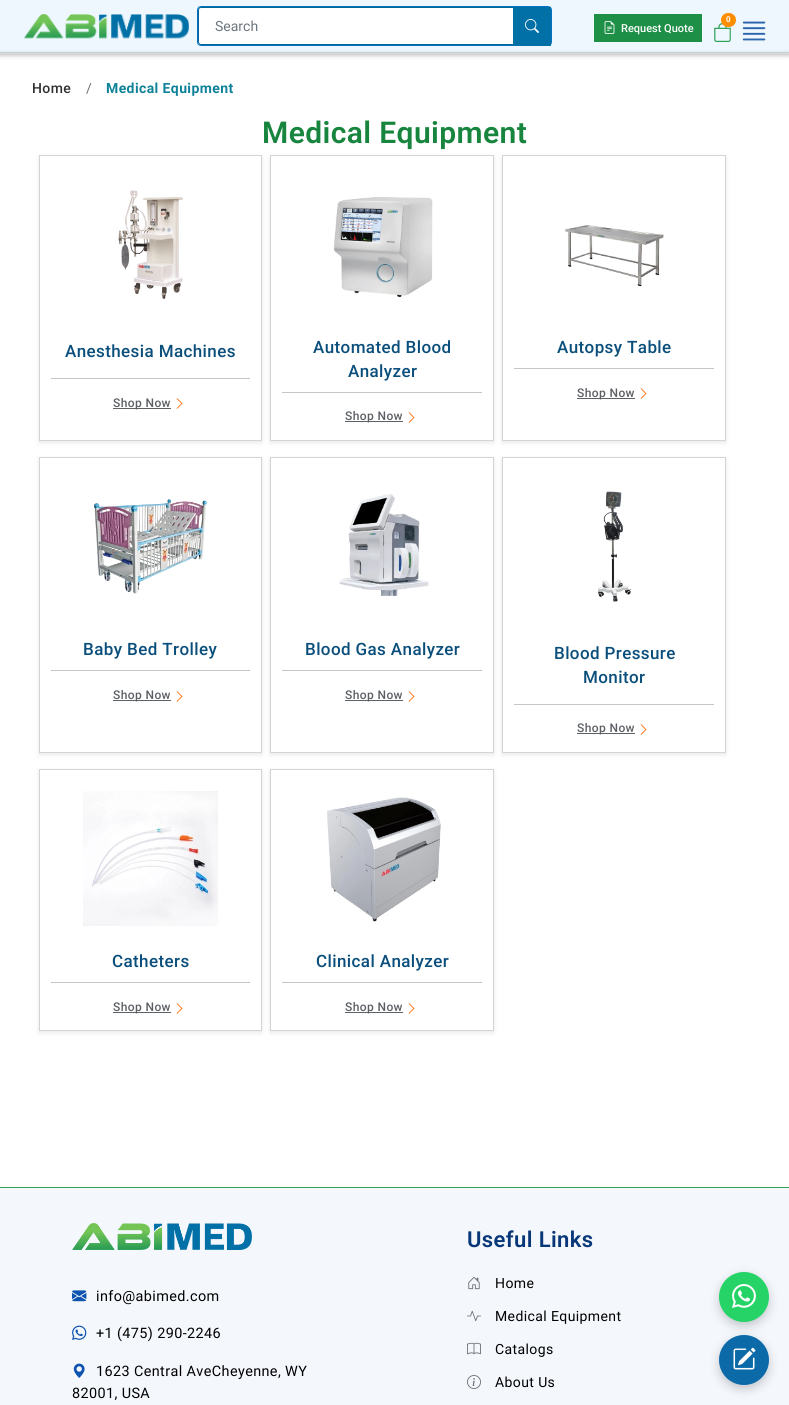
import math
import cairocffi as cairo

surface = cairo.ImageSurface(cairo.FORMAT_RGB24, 789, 1405)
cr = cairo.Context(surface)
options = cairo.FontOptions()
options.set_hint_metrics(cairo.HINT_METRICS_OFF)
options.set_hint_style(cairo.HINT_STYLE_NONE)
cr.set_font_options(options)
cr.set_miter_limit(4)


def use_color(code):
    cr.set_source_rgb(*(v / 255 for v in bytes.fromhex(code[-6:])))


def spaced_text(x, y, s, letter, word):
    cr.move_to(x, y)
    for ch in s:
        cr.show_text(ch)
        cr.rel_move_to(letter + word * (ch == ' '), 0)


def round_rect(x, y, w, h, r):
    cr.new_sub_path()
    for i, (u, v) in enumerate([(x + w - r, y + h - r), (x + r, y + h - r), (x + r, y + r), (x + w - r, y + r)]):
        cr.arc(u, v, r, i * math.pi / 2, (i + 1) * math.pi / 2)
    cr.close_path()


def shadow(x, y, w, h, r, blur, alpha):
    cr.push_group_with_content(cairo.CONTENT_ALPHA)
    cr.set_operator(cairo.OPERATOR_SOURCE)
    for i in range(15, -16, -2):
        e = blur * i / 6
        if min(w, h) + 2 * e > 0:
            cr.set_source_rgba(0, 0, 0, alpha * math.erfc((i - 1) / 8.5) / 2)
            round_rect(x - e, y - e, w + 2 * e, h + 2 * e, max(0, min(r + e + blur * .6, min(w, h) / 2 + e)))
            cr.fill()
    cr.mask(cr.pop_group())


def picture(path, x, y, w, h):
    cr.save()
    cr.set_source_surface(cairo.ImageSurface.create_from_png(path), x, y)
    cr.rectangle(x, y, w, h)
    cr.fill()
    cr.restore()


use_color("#ffffff")
cr.paint()
use_color("#000000")
shadow(0, 2, 789, 52, 0, 2.5, 0.1)
use_color("#eef7fd")
cr.rectangle(0, 0, 789, 52)
cr.fill()
picture("img1.png", 24, 14, 165, 25)
use_color("#000000")
shadow(0, 54, 789, 1, 0, 2.5, 0.26)
use_color("#ffffff")
round_rect(197.5, 6.5, 354, 39, 3.5)
cr.fill_preserve()
use_color("#0372c3")
cr.set_line_width(1)
cr.stroke()
round_rect(198.5, 7.5, 352, 37, 2.5)
use_color("#056695")
cr.stroke()
cr.select_font_face("Roboto")
cr.set_font_size(14)
use_color("#6c757d")
cr.move_to(215, 31)
cr.show_text("Search")
use_color("#0070a6")
cr.rectangle(513, 7, 38, 39)
cr.fill()
picture("img2.png", 525, 19, 14, 14)
picture("img3.png", 714, 23, 17, 19)
use_color("#ff8d00")
round_rect(721, 13, 15, 14, 7)
cr.fill()
cr.select_font_face("Roboto", cairo.FONT_SLANT_NORMAL, cairo.FONT_WEIGHT_BOLD)
cr.set_font_size(8)
use_color("#ffffff")
spaced_text(726, 22, "0", 0.4, 0)
cr.set_source_rgba(0.682, 0.765, 0.827, 0.44)
cr.rectangle(0, 52, 789, 1)
cr.fill()
use_color("#1d8f46")
cr.rectangle(594, 14, 108, 28)
cr.fill()
picture("img4.png", 604, 21, 11, 13)
cr.select_font_face("Roboto Medium")
cr.set_font_size(11)
use_color("#ffffff")
cr.move_to(621, 32)
cr.show_text("Request Quote")
picture("img5.png", 742, 21, 24, 20)
cr.set_font_size(14)
use_color("#303030")
spaced_text(32, 93, "Home", 0.4, 0)
cr.select_font_face("Roboto")
use_color("#6c757d")
spaced_text(86, 93, "/", 0.4, 0)
cr.select_font_face("Roboto", cairo.FONT_SLANT_NORMAL, cairo.FONT_WEIGHT_BOLD)
use_color("#0e8299")
spaced_text(106, 93, "Medical Equipment", 0.4, 0)
cr.select_font_face("Roboto SemiBold")
cr.set_font_size(30)
use_color("#17853e")
spaced_text(262, 143, "Medical Equipment", 0.4, 0)
cr.save()
cr.set_fill_rule(cairo.FILL_RULE_EVEN_ODD)
cr.new_path()
cr.move_to(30, 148)
cr.line_to(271, 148)
cr.line_to(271, 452)
cr.line_to(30, 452)
cr.close_path()
cr.move_to(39, 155)
cr.line_to(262, 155)
cr.line_to(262, 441)
cr.line_to(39, 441)
cr.close_path()
cr.clip()
use_color("#000000")
shadow(39, 157, 223, 286, 0, 2.5, 0.09)
cr.restore()
cr.rectangle(39.5, 155.5, 222, 285)
use_color("#d1d5d7")
cr.stroke()
use_color("#c5c5c5")
cr.rectangle(51, 378, 199, 1)
cr.fill()
picture("img6.png", 118, 190, 65, 109)
cr.select_font_face("Roboto Medium")
cr.set_font_size(17)
use_color("#0a4e7b")
spaced_text(65, 357, "Anesthesia Machines", 0.4, 0)
use_color("#5c6165")
cr.rectangle(113, 408, 58, 1)
cr.fill()
cr.set_font_size(12)
use_color("#5c6065")
spaced_text(113, 407, "Shop Now", 0.4, 0)
picture("img7.png", 176, 398, 7, 11)
cr.save()
cr.set_fill_rule(cairo.FILL_RULE_EVEN_ODD)
cr.new_path()
cr.move_to(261, 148)
cr.line_to(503, 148)
cr.line_to(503, 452)
cr.line_to(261, 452)
cr.close_path()
cr.move_to(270, 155)
cr.line_to(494, 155)
cr.line_to(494, 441)
cr.line_to(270, 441)
cr.close_path()
cr.clip()
use_color("#000000")
shadow(270, 157, 224, 286, 0, 2.5, 0.09)
cr.restore()
cr.rectangle(270.5, 155.5, 223, 285)
use_color("#d1d5d7")
cr.stroke()
use_color("#c5c5c5")
cr.rectangle(282, 392, 200, 1)
cr.fill()
picture("img8.png", 333, 197, 100, 101)
cr.set_font_size(17)
use_color("#0a4e7b")
spaced_text(313, 353, "Automated Blood", 0.4, 0)
spaced_text(348, 377, "Analyzer", 0.4, 0)
use_color("#5c6165")
cr.rectangle(345, 421, 58, 1)
cr.fill()
cr.set_font_size(12)
use_color("#5c6065")
spaced_text(345, 420, "Shop Now", 0.4, 0)
picture("img7.png", 408, 412, 7, 11)
cr.save()
cr.set_fill_rule(cairo.FILL_RULE_EVEN_ODD)
cr.new_path()
cr.move_to(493, 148)
cr.line_to(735, 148)
cr.line_to(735, 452)
cr.line_to(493, 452)
cr.close_path()
cr.move_to(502, 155)
cr.line_to(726, 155)
cr.line_to(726, 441)
cr.line_to(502, 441)
cr.close_path()
cr.clip()
use_color("#000000")
shadow(502, 157, 224, 286, 0, 2.5, 0.09)
cr.restore()
cr.rectangle(502.5, 155.5, 223, 285)
use_color("#d1d5d7")
cr.stroke()
use_color("#c5c5c5")
cr.rectangle(514, 368, 200, 1)
cr.fill()
picture("img9.png", 565, 225, 99, 62)
cr.set_font_size(17)
use_color("#0a4e7b")
spaced_text(557, 353, "Autopsy Table", 0.4, 0)
use_color("#5c6165")
cr.rectangle(577, 398, 58, 1)
cr.fill()
cr.set_font_size(12)
use_color("#5c6065")
spaced_text(577, 397, "Shop Now", 0.4, 0)
picture("img7.png", 640, 388, 7, 11)
cr.save()
cr.set_fill_rule(cairo.FILL_RULE_EVEN_ODD)
cr.new_path()
cr.move_to(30, 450)
cr.line_to(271, 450)
cr.line_to(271, 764)
cr.line_to(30, 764)
cr.close_path()
cr.move_to(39, 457)
cr.line_to(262, 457)
cr.line_to(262, 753)
cr.line_to(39, 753)
cr.close_path()
cr.clip()
use_color("#000000")
shadow(39, 459, 223, 296, 0, 2.5, 0.09)
cr.restore()
cr.rectangle(39.5, 457.5, 222, 295)
use_color("#d1d5d7")
cr.stroke()
use_color("#c5c5c5")
cr.rectangle(51, 670, 199, 1)
cr.fill()
picture("img10.png", 94, 499, 113, 95)
cr.set_font_size(17)
use_color("#0a4e7b")
spaced_text(83, 655, "Baby Bed Trolley", 0.4, 0)
use_color("#5c6165")
cr.rectangle(113, 700, 58, 1)
cr.fill()
cr.set_font_size(12)
use_color("#5c6065")
spaced_text(113, 699, "Shop Now", 0.4, 0)
picture("img7.png", 176, 691, 7, 11)
cr.save()
cr.set_fill_rule(cairo.FILL_RULE_EVEN_ODD)
cr.new_path()
cr.move_to(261, 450)
cr.line_to(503, 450)
cr.line_to(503, 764)
cr.line_to(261, 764)
cr.close_path()
cr.move_to(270, 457)
cr.line_to(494, 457)
cr.line_to(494, 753)
cr.line_to(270, 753)
cr.close_path()
cr.clip()
use_color("#000000")
shadow(270, 459, 224, 296, 0, 2.5, 0.09)
cr.restore()
cr.rectangle(270.5, 457.5, 223, 295)
use_color("#d1d5d7")
cr.stroke()
use_color("#c5c5c5")
cr.rectangle(282, 670, 200, 1)
cr.fill()
picture("img11.png", 339, 493, 90, 103)
cr.set_font_size(17)
use_color("#0a4e7b")
spaced_text(305, 655, "Blood Gas Analyzer", 0.4, 0)
use_color("#5c6165")
cr.rectangle(345, 700, 58, 1)
cr.fill()
cr.set_font_size(12)
use_color("#5c6065")
spaced_text(345, 699, "Shop Now", 0.4, 0)
picture("img7.png", 408, 691, 7, 11)
cr.save()
cr.set_fill_rule(cairo.FILL_RULE_EVEN_ODD)
cr.new_path()
cr.move_to(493, 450)
cr.line_to(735, 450)
cr.line_to(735, 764)
cr.line_to(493, 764)
cr.close_path()
cr.move_to(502, 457)
cr.line_to(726, 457)
cr.line_to(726, 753)
cr.line_to(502, 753)
cr.close_path()
cr.clip()
use_color("#000000")
shadow(502, 459, 224, 296, 0, 2.5, 0.09)
cr.restore()
cr.rectangle(502.5, 457.5, 223, 295)
use_color("#d1d5d7")
cr.stroke()
use_color("#c5c5c5")
cr.rectangle(514, 704, 200, 1)
cr.fill()
picture("img12.png", 598, 491, 33, 111)
cr.set_font_size(17)
use_color("#0a4e7b")
spaced_text(554, 659, "Blood Pressure", 0.4, 0)
spaced_text(583, 683, "Monitor", 0.4, 0)
use_color("#5c6165")
cr.rectangle(577, 733, 58, 1)
cr.fill()
cr.set_font_size(12)
use_color("#5c6065")
spaced_text(577, 732, "Shop Now", 0.4, 0)
picture("img7.png", 640, 724, 7, 11)
cr.save()
cr.set_fill_rule(cairo.FILL_RULE_EVEN_ODD)
cr.new_path()
cr.move_to(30, 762)
cr.line_to(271, 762)
cr.line_to(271, 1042)
cr.line_to(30, 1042)
cr.close_path()
cr.move_to(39, 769)
cr.line_to(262, 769)
cr.line_to(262, 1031)
cr.line_to(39, 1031)
cr.close_path()
cr.clip()
use_color("#000000")
shadow(39, 771, 223, 262, 0, 2.5, 0.09)
cr.restore()
cr.rectangle(39.5, 769.5, 222, 261)
use_color("#d1d5d7")
cr.stroke()
use_color("#c5c5c5")
cr.rectangle(51, 982, 199, 1)
cr.fill()
picture("img13.png", 83, 791, 135, 135)
cr.set_font_size(17)
use_color("#0a4e7b")
spaced_text(112, 967, "Catheters", 0.4, 0)
use_color("#5c6165")
cr.rectangle(113, 1012, 58, 1)
cr.fill()
cr.set_font_size(12)
use_color("#5c6065")
spaced_text(113, 1011, "Shop Now", 0.4, 0)
picture("img7.png", 176, 1003, 7, 11)
cr.save()
cr.set_fill_rule(cairo.FILL_RULE_EVEN_ODD)
cr.new_path()
cr.move_to(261, 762)
cr.line_to(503, 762)
cr.line_to(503, 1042)
cr.line_to(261, 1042)
cr.close_path()
cr.move_to(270, 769)
cr.line_to(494, 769)
cr.line_to(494, 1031)
cr.line_to(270, 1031)
cr.close_path()
cr.clip()
use_color("#000000")
shadow(270, 771, 224, 262, 0, 2.5, 0.09)
cr.restore()
cr.rectangle(270.5, 769.5, 223, 261)
use_color("#d1d5d7")
cr.stroke()
use_color("#c5c5c5")
cr.rectangle(282, 982, 200, 1)
cr.fill()
picture("img14.png", 327, 797, 114, 125)
cr.set_font_size(17)
use_color("#0a4e7b")
spaced_text(316, 967, "Clinical Analyzer", 0.4, 0)
use_color("#5c6165")
cr.rectangle(345, 1012, 58, 1)
cr.fill()
cr.set_font_size(12)
use_color("#5c6065")
spaced_text(345, 1011, "Shop Now", 0.4, 0)
picture("img7.png", 408, 1003, 7, 11)
use_color("#f4f7fc")
cr.rectangle(0, 1188, 789, 217)
cr.fill()
use_color("#2d9e55")
cr.rectangle(0, 1187, 789, 1)
cr.fill()
picture("img15.png", 72, 1223, 180, 27)
picture("img16.png", 72, 1290, 15, 12)
cr.select_font_face("Roboto")
cr.set_font_size(14.4)
use_color("#000000")
spaced_text(96, 1301, "info@abimed.com", 0.4, 0)
picture("img17.png", 72, 1325, 15, 15)
spaced_text(96, 1338, "+1 (475) 290-2246", 0.4, 0)
picture("img18.png", 73, 1363, 12, 15)
spaced_text(96, 1376, "1623 Central AveCheyenne, WY", 0.4, 0)
spaced_text(72, 1398, "82001, USA", 0.4, 0)
cr.select_font_face("Roboto SemiBold")
cr.set_font_size(22)
use_color("#073778")
spaced_text(467, 1247, "Useful Links", 0.4, 0)
picture("img19.png", 468, 1277, 12, 13)
cr.select_font_face("Roboto")
cr.set_font_size(14)
use_color("#000000")
spaced_text(495, 1288, "Home", 0.4, 0)
picture("img20.png", 467, 1310, 14, 12)
spaced_text(495, 1321, "Medical Equipment", 0.4, 0)
picture("img21.png", 467, 1342, 14, 13)
spaced_text(495, 1354, "Catalogs", 0.4, 0)
picture("img22.png", 467, 1375, 14, 14)
spaced_text(495, 1387, "About Us", 0.4, 0)
use_color("#000000")
shadow(719, 1276, 50, 50, 25, 5, 0.2)
use_color("#25d366")
cr.arc(744, 1297, 25, 0, 2 * math.pi)
cr.fill()
picture("img23.png", 732, 1284, 24, 24)
use_color("#000000")
shadow(719, 1339, 50, 50, 25, 5, 0.2)
use_color("#0d6aa8")
cr.arc(744, 1360, 25, 0, 2 * math.pi)
cr.fill()
picture("img24.png", 733, 1347, 23, 23)
surface.write_to_png("result.png")
